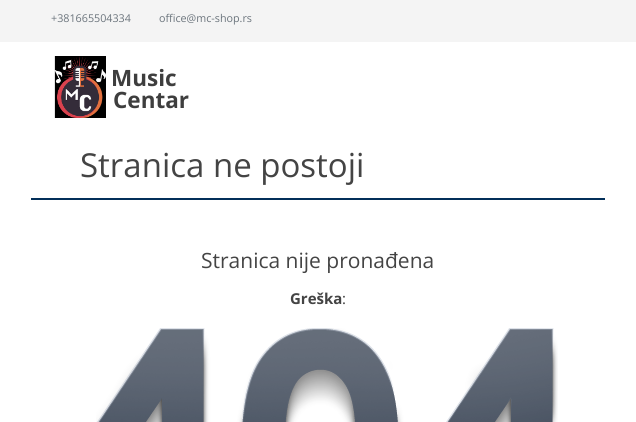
import math
import cairocffi as cairo

surface = cairo.ImageSurface(cairo.FORMAT_RGB24, 636, 422)
cr = cairo.Context(surface)
options = cairo.FontOptions()
options.set_hint_metrics(cairo.HINT_METRICS_OFF)
options.set_hint_style(cairo.HINT_STYLE_NONE)
cr.set_font_options(options)
cr.set_miter_limit(4)


def use_color(code):
    cr.set_source_rgb(*(v / 255 for v in bytes.fromhex(code[-6:])))


def picture(path, x, y, w, h):
    cr.save()
    cr.set_source_surface(cairo.ImageSurface.create_from_png(path), x, y)
    cr.rectangle(x, y, w, h)
    cr.fill()
    cr.restore()


use_color("#ffffff")
cr.paint()
use_color("#f4f4f4")
cr.rectangle(0, 0, 636, 42)
cr.fill()
cr.select_font_face("Open Sans")
cr.set_font_size(10.75)
use_color("#6c757d")
cr.move_to(51, 22)
cr.show_text("+381665504334")
cr.move_to(159, 22)
cr.show_text("office@mc-shop.rs")
picture("img1.png", 54, 56, 52, 62)
cr.select_font_face("Open Sans", cairo.FONT_SLANT_NORMAL, cairo.FONT_WEIGHT_BOLD)
cr.set_font_size(22.5)
use_color("#3e3e3e")
cr.move_to(111, 86)
cr.show_text("Music")
cr.move_to(113, 108)
cr.show_text("Centar")
cr.select_font_face("Open Sans")
cr.set_font_size(33)
use_color("#444444")
cr.move_to(80, 177)
cr.show_text("Stranica ne postoji")
use_color("#032f59")
cr.rectangle(31, 198, 574, 2)
cr.fill()
cr.set_font_size(21)
use_color("#444444")
cr.move_to(201, 268)
cr.show_text("Stranica nije pronađena")
cr.select_font_face("Open Sans", cairo.FONT_SLANT_NORMAL, cairo.FONT_WEIGHT_BOLD)
cr.set_font_size(15)
cr.move_to(290, 304)
cr.show_text("Greška")
cr.select_font_face("Open Sans")
cr.move_to(342, 304)
cr.show_text(":")
picture("img2.png", 96, 328, 462, 94)
surface.write_to_png("result.png")
